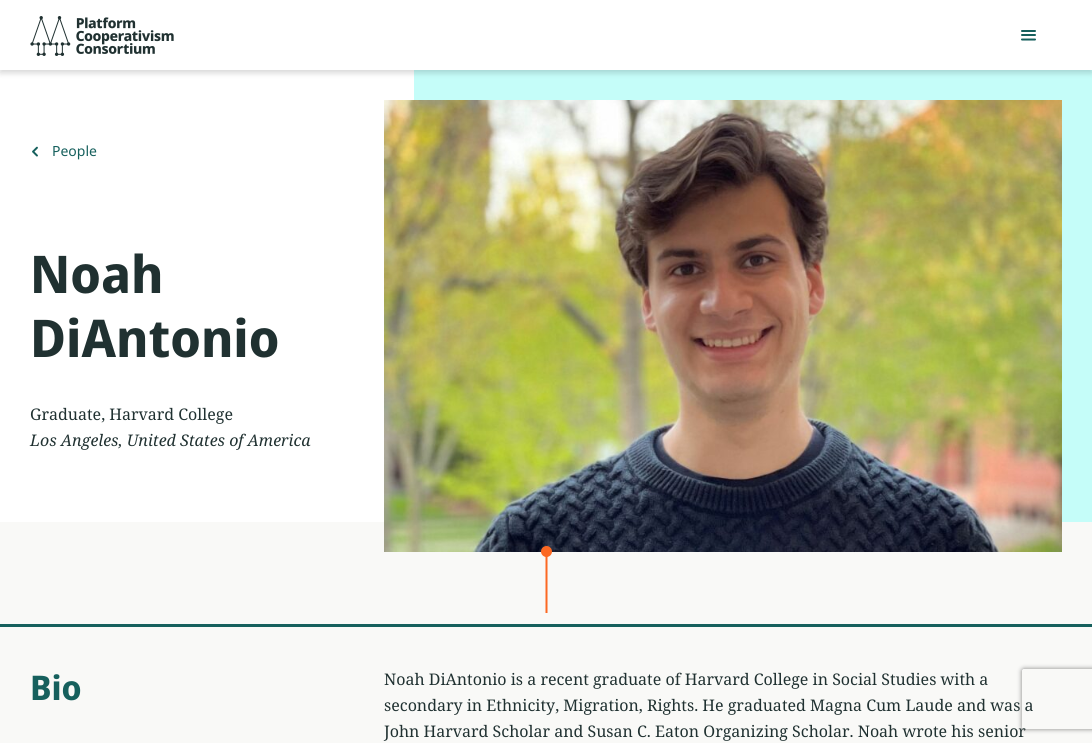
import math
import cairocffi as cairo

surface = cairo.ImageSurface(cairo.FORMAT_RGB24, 1092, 743)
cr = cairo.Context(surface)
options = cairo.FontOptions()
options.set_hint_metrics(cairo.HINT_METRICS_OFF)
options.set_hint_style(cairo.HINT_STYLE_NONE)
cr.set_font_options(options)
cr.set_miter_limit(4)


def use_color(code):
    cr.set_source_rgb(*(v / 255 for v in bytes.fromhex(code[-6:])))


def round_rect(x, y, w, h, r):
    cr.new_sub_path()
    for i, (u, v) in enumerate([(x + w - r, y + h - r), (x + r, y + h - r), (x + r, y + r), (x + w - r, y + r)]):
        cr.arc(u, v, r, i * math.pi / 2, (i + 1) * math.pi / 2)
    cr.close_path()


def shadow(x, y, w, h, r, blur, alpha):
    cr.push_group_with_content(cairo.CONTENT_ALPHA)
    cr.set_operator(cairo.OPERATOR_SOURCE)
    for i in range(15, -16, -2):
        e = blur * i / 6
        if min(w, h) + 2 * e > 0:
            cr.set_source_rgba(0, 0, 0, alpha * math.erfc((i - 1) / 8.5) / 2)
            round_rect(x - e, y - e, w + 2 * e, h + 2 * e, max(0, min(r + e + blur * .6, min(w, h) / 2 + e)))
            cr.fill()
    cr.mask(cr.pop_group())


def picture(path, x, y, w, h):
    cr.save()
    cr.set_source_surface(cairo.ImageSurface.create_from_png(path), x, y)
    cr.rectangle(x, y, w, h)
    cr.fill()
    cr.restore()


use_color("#ffffff")
cr.paint()
use_color("#c5fdf9")
cr.new_path()
cr.move_to(414, 70)
cr.line_to(414, 100)
cr.line_to(1062, 100)
cr.line_to(1062, 522)
cr.line_to(1092, 522)
cr.line_to(1092, 70)
cr.close_path()
cr.fill()
use_color("#000000")
shadow(0, 3, 1092, 70, 0, 3, 0.16)
use_color("#ffffff")
cr.rectangle(0, 0, 1092, 70)
cr.fill()
picture("img1.png", 30, 16, 144, 40)
cr.new_path()
cr.move_to(1022, 31)
cr.line_to(1035, 31)
cr.move_to(1022, 35)
cr.line_to(1035, 35)
cr.move_to(1022, 39.5)
cr.line_to(1035, 39.5)
use_color("#16605d")
cr.set_line_cap(cairo.LINE_CAP_ROUND)
cr.stroke()
picture("img2.png", 32, 146, 6, 11)
cr.select_font_face("Noto Sans")
cr.set_font_size(14)
cr.move_to(52, 156)
cr.show_text("People")
cr.select_font_face("Noto Sans Display", cairo.FONT_SLANT_NORMAL, cairo.FONT_WEIGHT_BOLD)
cr.set_font_size(52)
use_color("#203131")
cr.move_to(30, 293)
cr.show_text("Noah")
cr.move_to(30, 357)
cr.show_text("DiAntonio")
cr.select_font_face("Noto Serif")
cr.set_font_size(16)
cr.move_to(30, 420)
cr.show_text("Graduate, Harvard College")
cr.select_font_face("Noto Serif", cairo.FONT_SLANT_ITALIC)
cr.move_to(30, 446)
cr.show_text("Los Angeles, United States of America")
use_color("#f9f9f7")
cr.rectangle(0, 522, 1092, 221)
cr.fill()
picture("img3.png", 384, 100, 678, 452)
cr.save()
cr.rectangle(541, 546, 11, 67)
cr.clip()
cr.new_path()
cr.move_to(546.5, 550.5)
cr.line_to(546.5, 613.5)
use_color("#fc6822")
cr.set_line_cap(cairo.LINE_CAP_BUTT)
cr.stroke()
cr.restore()
use_color("#fc6822")
cr.arc(546.5, 551.5, 5.5, 0, 2 * math.pi)
cr.fill()
use_color("#16605d")
cr.rectangle(0, 624, 1092, 3)
cr.fill()
cr.select_font_face("Noto Sans Display", cairo.FONT_SLANT_NORMAL, cairo.FONT_WEIGHT_BOLD)
cr.set_font_size(34)
cr.move_to(30, 700)
cr.show_text("Bio")
cr.select_font_face("Noto Serif")
cr.set_font_size(16)
use_color("#203131")
cr.move_to(384, 685)
cr.show_text("Noah DiAntonio is a recent graduate of Harvard College in Social Studies with a")
cr.move_to(384, 711)
cr.show_text("secondary in Ethnicity, Migration, Rights. He graduated Magna Cum Laude and was a")
cr.move_to(384, 737)
cr.show_text("John Harvard Scholar and Susan C. Eaton Organizing Scholar. Noah wrote his senior")
cr.save()
cr.set_fill_rule(cairo.FILL_RULE_EVEN_ODD)
cr.new_path()
cr.move_to(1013, 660)
cr.line_to(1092, 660)
cr.line_to(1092, 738)
cr.line_to(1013, 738)
cr.close_path()
cr.move_to(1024, 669)
cr.line_to(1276, 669)
cr.curve_to(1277, 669, 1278, 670, 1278, 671)
cr.line_to(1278, 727)
cr.curve_to(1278, 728, 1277, 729, 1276, 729)
cr.line_to(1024, 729)
cr.curve_to(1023, 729, 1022, 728, 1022, 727)
cr.line_to(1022, 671)
cr.curve_to(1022, 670, 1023, 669, 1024, 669)
cr.close_path()
cr.clip()
use_color("#808080")
shadow(1022, 669, 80, 60, 2, 2.5, 1)
cr.restore()
surface.write_to_png("result.png")
